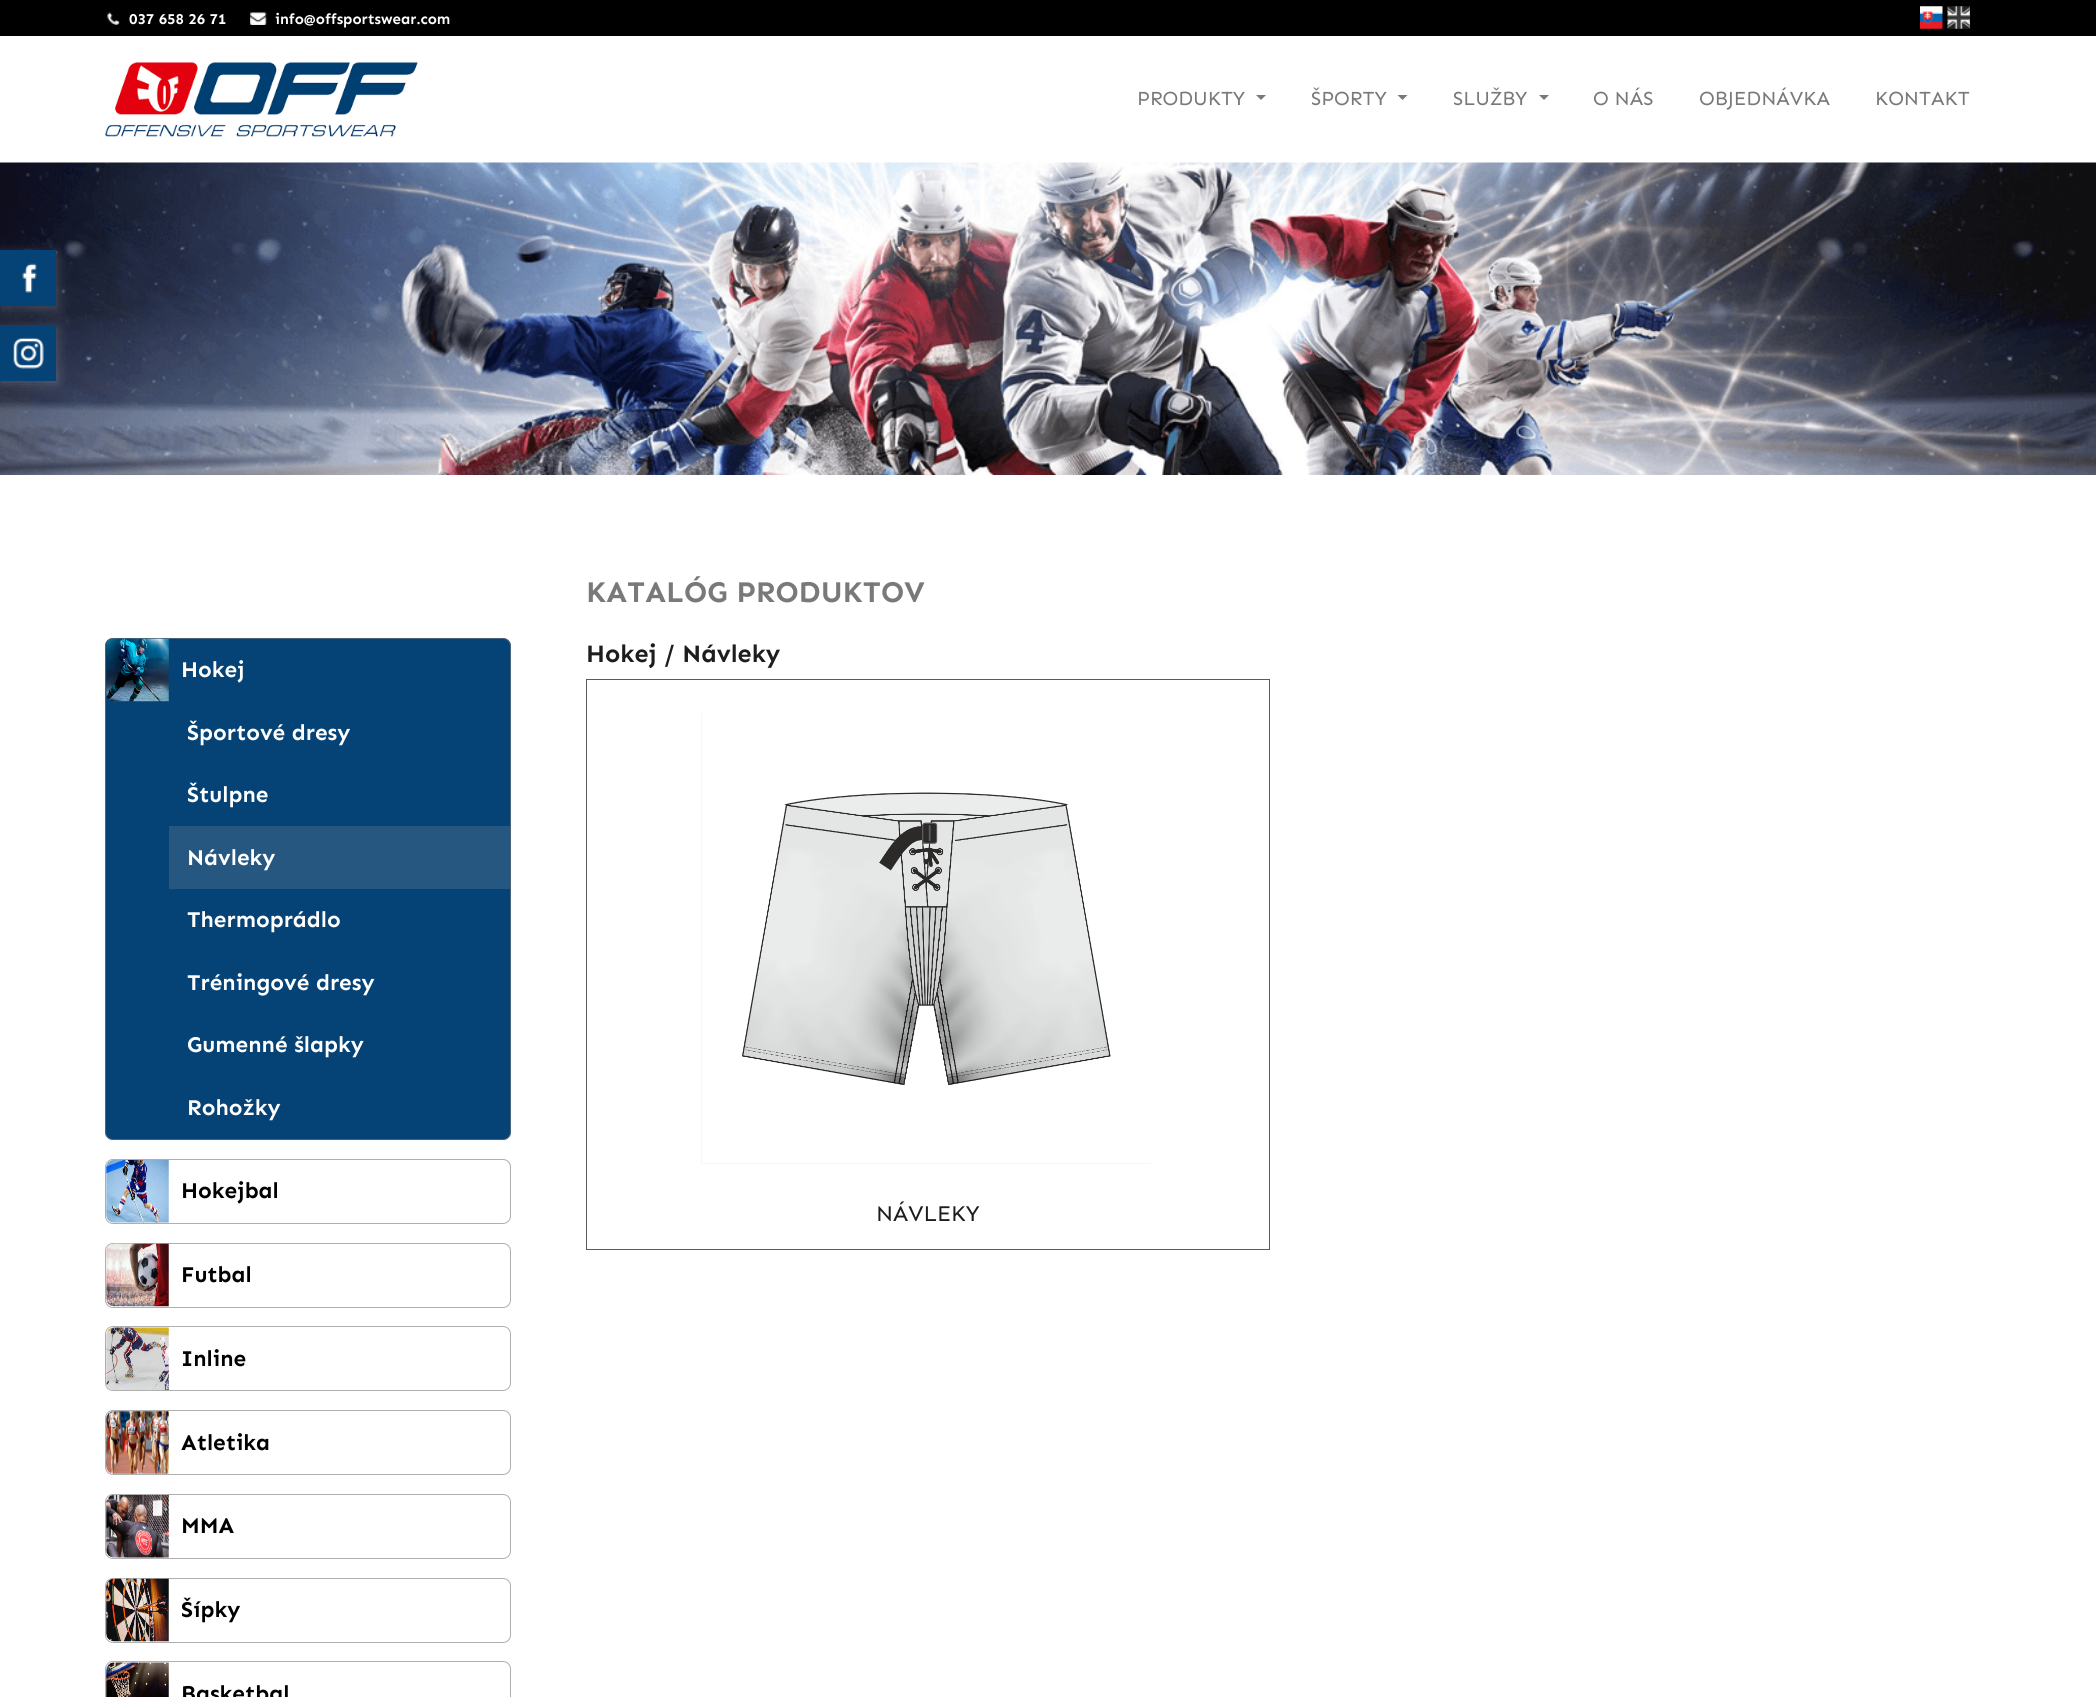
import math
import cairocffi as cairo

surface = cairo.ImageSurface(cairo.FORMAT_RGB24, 2096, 1697)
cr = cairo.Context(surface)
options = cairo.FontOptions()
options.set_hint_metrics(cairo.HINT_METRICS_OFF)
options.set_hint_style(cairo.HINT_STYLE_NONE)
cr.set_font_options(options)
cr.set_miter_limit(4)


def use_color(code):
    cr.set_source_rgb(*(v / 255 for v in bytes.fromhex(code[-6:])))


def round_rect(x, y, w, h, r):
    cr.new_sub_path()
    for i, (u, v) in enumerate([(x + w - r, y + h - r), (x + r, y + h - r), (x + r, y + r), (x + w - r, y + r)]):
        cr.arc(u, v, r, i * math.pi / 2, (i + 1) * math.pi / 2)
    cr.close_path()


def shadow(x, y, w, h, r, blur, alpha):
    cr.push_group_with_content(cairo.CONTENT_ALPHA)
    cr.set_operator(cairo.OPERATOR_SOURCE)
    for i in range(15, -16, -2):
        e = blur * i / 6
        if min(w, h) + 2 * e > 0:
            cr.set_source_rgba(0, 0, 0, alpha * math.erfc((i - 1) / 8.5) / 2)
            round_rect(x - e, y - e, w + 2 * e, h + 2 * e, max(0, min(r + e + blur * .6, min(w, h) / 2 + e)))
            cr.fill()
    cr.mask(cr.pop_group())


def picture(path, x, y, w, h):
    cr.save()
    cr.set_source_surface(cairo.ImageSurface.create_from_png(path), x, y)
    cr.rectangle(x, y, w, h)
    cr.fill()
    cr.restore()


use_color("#ffffff")
cr.paint()
picture("img8.png", 0, 162, 2096, 313)
shadow(1, 253, 57, 56, 0, 6, 0.2)
use_color("#054275")
cr.rectangle(0, 250, 56, 56)
cr.fill()
picture("img1.png", 22, 263, 15, 30)
use_color("#ffffff")
shadow(1, 328, 57, 56, 0, 6, 0.2)
use_color("#054275")
cr.rectangle(0, 325, 56, 56)
cr.fill()
picture("img2.png", 13, 337, 31, 32)
use_color("#000000")
cr.rectangle(0, 0, 2096, 36)
cr.fill()
picture("img3.png", 107, 12, 13, 13)
cr.select_font_face("Sen", cairo.FONT_SLANT_NORMAL, cairo.FONT_WEIGHT_BOLD)
cr.set_font_size(15)
use_color("#ffffff")
cr.move_to(129, 24)
cr.show_text("037 658 26 71")
picture("img4.png", 250, 12, 17, 13)
cr.move_to(275, 24)
cr.show_text("info@offsportswear.com")
picture("img5.png", 1920, 6, 23, 23)
picture("img6.png", 1947, 6, 23, 23)
picture("img7.png", 105, 62, 313, 75)
cr.select_font_face("Sen")
cr.set_font_size(20)
use_color("#797979")
cr.move_to(1137, 105)
cr.show_text("PRODUKTY")
cr.new_path()
cr.move_to(1256, 95)
cr.line_to(1266, 95)
cr.line_to(1261, 100)
cr.close_path()
cr.fill()
cr.move_to(1311, 105)
cr.show_text("ŠPORTY")
cr.new_path()
cr.move_to(1397.5, 95)
cr.line_to(1407.5, 95)
cr.line_to(1402.5, 100)
cr.close_path()
cr.fill()
cr.move_to(1453, 105)
cr.show_text("SLUŽBY")
cr.new_path()
cr.move_to(1539, 95)
cr.line_to(1549, 95)
cr.line_to(1544, 100)
cr.close_path()
cr.fill()
cr.move_to(1593, 105)
cr.show_text("O NÁS")
cr.move_to(1699, 105)
cr.show_text("OBJEDNÁVKA")
cr.move_to(1875, 105)
cr.show_text("KONTAKT")
use_color("#054275")
round_rect(105, 638, 406, 502, 8)
cr.fill()
round_rect(105.5, 638.5, 405, 501, 7.5)
cr.set_source_rgba(0.475, 0.475, 0.475, 0.6)
cr.set_line_width(1)
cr.stroke()
picture("img9.png", 106, 638, 63, 64)
cr.select_font_face("Sen", cairo.FONT_SLANT_NORMAL, cairo.FONT_WEIGHT_BOLD)
cr.set_font_size(22.5)
use_color("#ffffff")
cr.move_to(181, 677)
cr.show_text("Hokej")
cr.move_to(187, 740)
cr.show_text("Športové dresy")
cr.move_to(187, 802)
cr.show_text("Štulpne")
use_color("#265780")
cr.rectangle(169, 826, 341, 63)
cr.fill()
use_color("#ffffff")
cr.move_to(187, 865)
cr.show_text("Návleky")
cr.move_to(187, 927)
cr.show_text("Thermoprádlo")
cr.move_to(187, 990)
cr.show_text("Tréningové dresy")
cr.move_to(187, 1052)
cr.show_text("Gumenné šlapky")
cr.move_to(187, 1115)
cr.show_text("Rohožky")
round_rect(105.5, 1159.5, 405, 64, 7.5)
use_color("#afafaf")
cr.stroke()
picture("img10.png", 106, 1160, 63, 63)
use_color("#000000")
cr.move_to(181, 1198)
cr.show_text("Hokejbal")
round_rect(105.5, 1243.5, 405, 64, 7.5)
use_color("#afafaf")
cr.stroke()
picture("img11.png", 106, 1243, 63, 64)
use_color("#000000")
cr.move_to(181, 1282)
cr.show_text("Futbal")
round_rect(105.5, 1326.5, 405, 64, 7.5)
use_color("#afafaf")
cr.stroke()
picture("img12.png", 106, 1327, 63, 63)
use_color("#000000")
cr.move_to(181, 1366)
cr.show_text("Inline")
round_rect(105.5, 1410.5, 405, 64, 7.5)
use_color("#afafaf")
cr.stroke()
picture("img13.png", 106, 1411, 63, 63)
use_color("#000000")
cr.move_to(181, 1450)
cr.show_text("Atletika")
round_rect(105.5, 1494.5, 405, 64, 7.5)
use_color("#afafaf")
cr.stroke()
picture("img14.png", 106, 1495, 63, 63)
use_color("#000000")
cr.move_to(181, 1533)
cr.show_text("MMA")
round_rect(105.5, 1578.5, 405, 64, 7.5)
use_color("#afafaf")
cr.stroke()
picture("img15.png", 106, 1578, 63, 64)
use_color("#000000")
cr.move_to(181, 1617)
cr.show_text("Šípky")
round_rect(105.5, 1661.5, 405, 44, 7.5)
use_color("#afafaf")
cr.stroke()
picture("img16.png", 106, 1662, 63, 35)
use_color("#000000")
cr.move_to(181, 1701)
cr.show_text("Basketbal")
cr.set_font_size(30)
use_color("#797979")
cr.move_to(586, 602)
cr.show_text("KATALÓG PRODUKTOV")
cr.set_font_size(25)
use_color("#1d1d1d")
cr.move_to(586, 662)
cr.show_text("Hokej / Návleky")
cr.rectangle(586.5, 679.5, 683, 570)
use_color("#585b60")
cr.stroke()
picture("img17.png", 701, 714, 450, 450)
cr.select_font_face("Sen")
cr.set_font_size(22.5)
use_color("#1d1d1d")
cr.move_to(876, 1221)
cr.show_text("NÁVLEKY")
surface.write_to_png("result.png")
